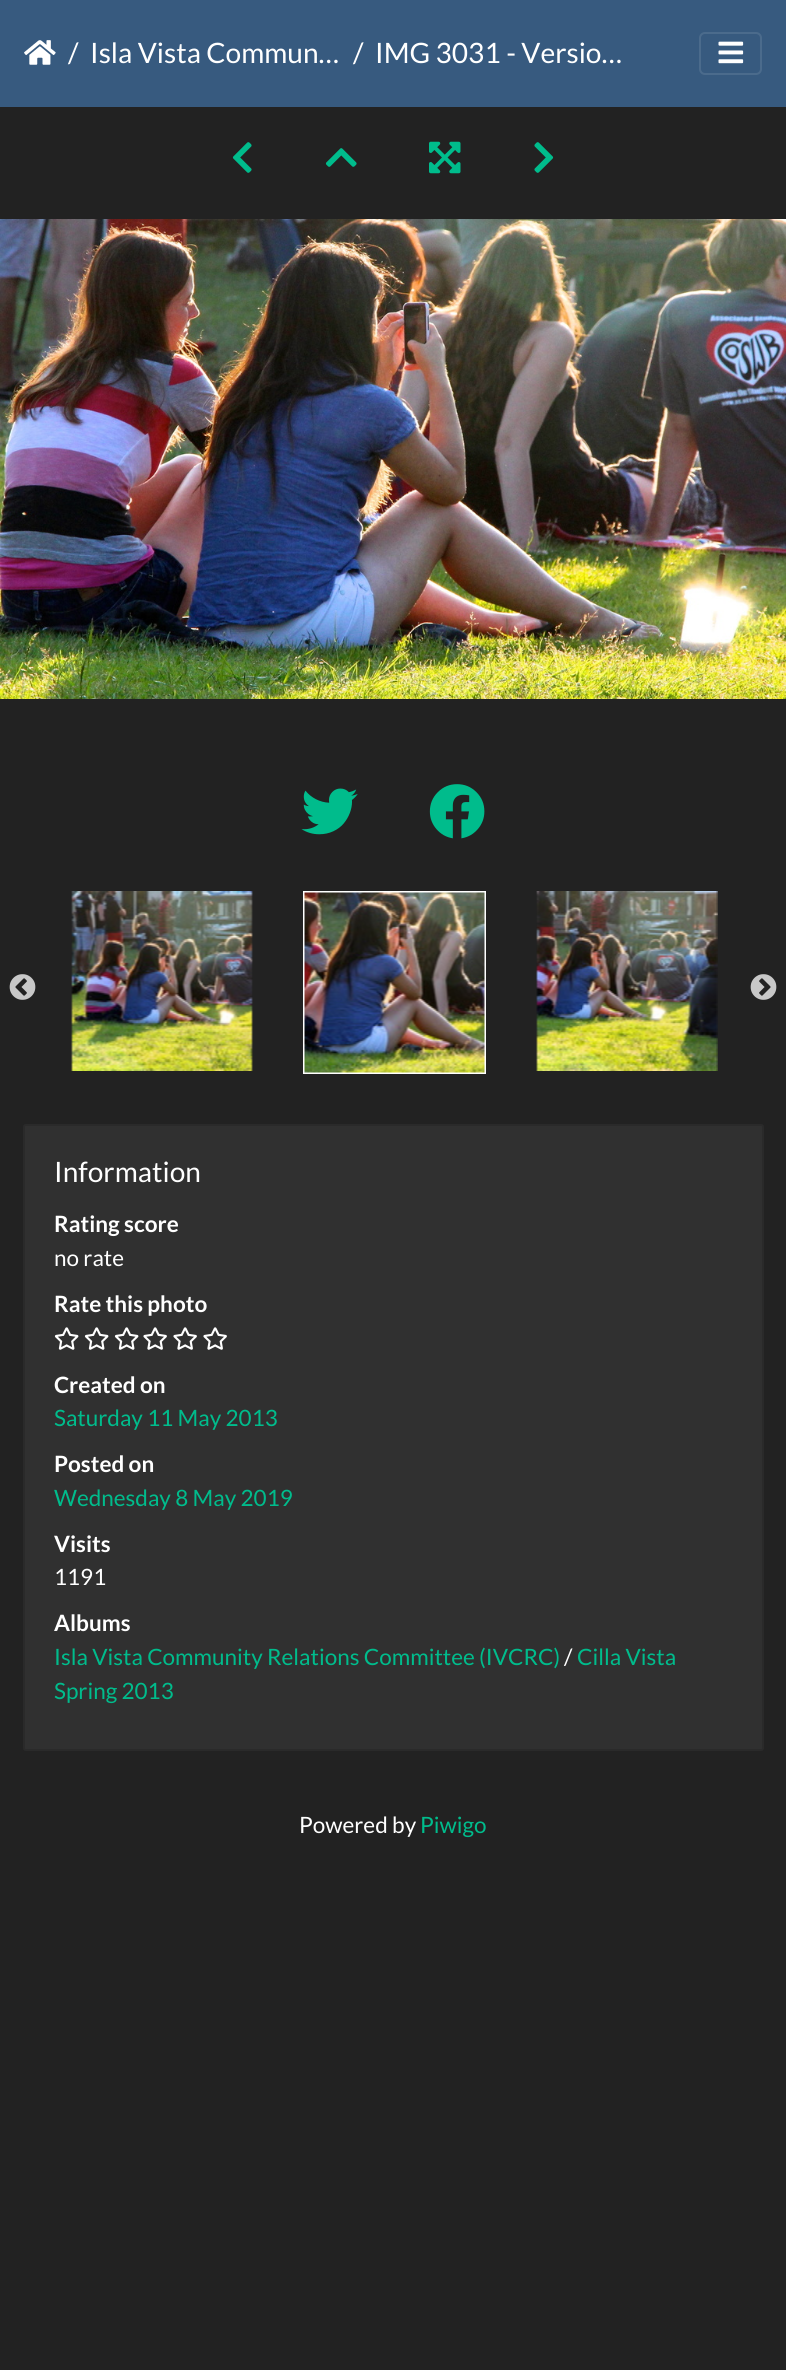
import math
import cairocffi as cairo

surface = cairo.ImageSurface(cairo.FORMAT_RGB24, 786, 2370)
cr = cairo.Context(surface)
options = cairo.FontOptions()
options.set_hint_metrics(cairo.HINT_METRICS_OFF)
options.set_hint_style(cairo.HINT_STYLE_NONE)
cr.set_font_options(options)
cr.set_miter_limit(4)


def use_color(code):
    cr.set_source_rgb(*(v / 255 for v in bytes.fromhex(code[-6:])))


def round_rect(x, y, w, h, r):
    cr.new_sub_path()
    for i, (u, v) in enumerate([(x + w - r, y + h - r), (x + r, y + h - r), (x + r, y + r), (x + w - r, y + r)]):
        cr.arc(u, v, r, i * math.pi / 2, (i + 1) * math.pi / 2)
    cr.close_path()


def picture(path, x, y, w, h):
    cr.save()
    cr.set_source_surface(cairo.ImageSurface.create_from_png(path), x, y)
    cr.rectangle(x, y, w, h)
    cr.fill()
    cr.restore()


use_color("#222222")
cr.paint()
use_color("#375a7f")
cr.rectangle(0, 0, 786, 107)
cr.fill()
picture("img1.png", 24, 40, 32, 25)
cr.select_font_face("Lato")
cr.set_font_size(28.1)
use_color("#ffffff")
cr.move_to(68, 63)
cr.show_text("/")
cr.move_to(90, 63)
cr.show_text("Isla Vista Commun…")
cr.move_to(353, 63)
cr.show_text("/")
cr.move_to(375, 63)
cr.show_text("IMG 3031 - Versio…")
round_rect(700, 33, 61, 41, 5)
use_color("#4b6b8c")
cr.stroke()
picture("img2.png", 718, 41, 26, 23)
picture("img3.png", 232, 142, 20, 31)
picture("img4.png", 325, 148, 32, 19)
picture("img5.png", 429, 141, 32, 33)
picture("img6.png", 534, 142, 20, 31)
picture("img7.png", 0, 219, 786, 480)
picture("img8.png", 301, 788, 57, 47)
picture("img9.png", 429, 784, 56, 55)
picture("img10.png", 9, 974, 27, 26)
picture("img11.png", 71, 891, 182, 180)
cr.rectangle(304, 892, 181, 181)
use_color("#ffffff")
cr.stroke()
picture("img12.png", 304, 892, 181, 181)
picture("img13.png", 536, 891, 182, 180)
picture("img14.png", 750, 974, 27, 26)
use_color("#303030")
round_rect(23, 1124, 741, 627, 3)
cr.fill()
round_rect(24, 1125, 739, 625, 2)
cr.set_source_rgba(0, 0, 0, 0.12)
cr.stroke()
use_color("#ffffff")
cr.move_to(54, 1182)
cr.show_text("Information")
cr.select_font_face("Lato", cairo.FONT_SLANT_NORMAL, cairo.FONT_WEIGHT_BOLD)
cr.set_font_size(22.5)
cr.move_to(54, 1232)
cr.show_text("Rating score")
cr.select_font_face("Lato")
cr.move_to(54, 1266)
cr.show_text("no rate")
cr.select_font_face("Lato", cairo.FONT_SLANT_NORMAL, cairo.FONT_WEIGHT_BOLD)
cr.move_to(54, 1312)
cr.show_text("Rate this photo")
picture("img15.png", 54, 1327, 25, 23)
picture("img15.png", 84, 1327, 25, 23)
picture("img15.png", 114, 1327, 25, 23)
picture("img16.png", 143, 1327, 24, 23)
picture("img16.png", 173, 1327, 24, 23)
picture("img16.png", 203, 1327, 24, 23)
cr.move_to(54, 1393)
cr.show_text("Created on")
cr.select_font_face("Lato")
use_color("#00bc8c")
cr.move_to(54, 1426)
cr.show_text("Saturday 11 May 2013")
cr.select_font_face("Lato", cairo.FONT_SLANT_NORMAL, cairo.FONT_WEIGHT_BOLD)
use_color("#ffffff")
cr.move_to(54, 1472)
cr.show_text("Posted on")
cr.select_font_face("Lato")
use_color("#00bc8c")
cr.move_to(54, 1506)
cr.show_text("Wednesday 8 May 2019")
cr.select_font_face("Lato", cairo.FONT_SLANT_NORMAL, cairo.FONT_WEIGHT_BOLD)
use_color("#ffffff")
cr.move_to(54, 1552)
cr.show_text("Visits")
cr.select_font_face("Lato")
cr.move_to(54, 1585)
cr.show_text("1191")
cr.select_font_face("Lato", cairo.FONT_SLANT_NORMAL, cairo.FONT_WEIGHT_BOLD)
cr.move_to(54, 1631)
cr.show_text("Albums")
cr.select_font_face("Lato")
use_color("#00bc8c")
cr.move_to(54, 1665)
cr.show_text("Isla Vista Community Relations Committee (IVCRC)")
use_color("#ffffff")
cr.move_to(564, 1665)
cr.show_text("/")
use_color("#00bc8c")
cr.move_to(577, 1665)
cr.show_text("Cilla Vista")
cr.move_to(54, 1699)
cr.show_text("Spring 2013")
use_color("#ffffff")
cr.move_to(299, 1833)
cr.show_text("Powered by")
use_color("#00bc8c")
cr.move_to(420, 1833)
cr.show_text("Piwigo")
surface.write_to_png("result.png")
